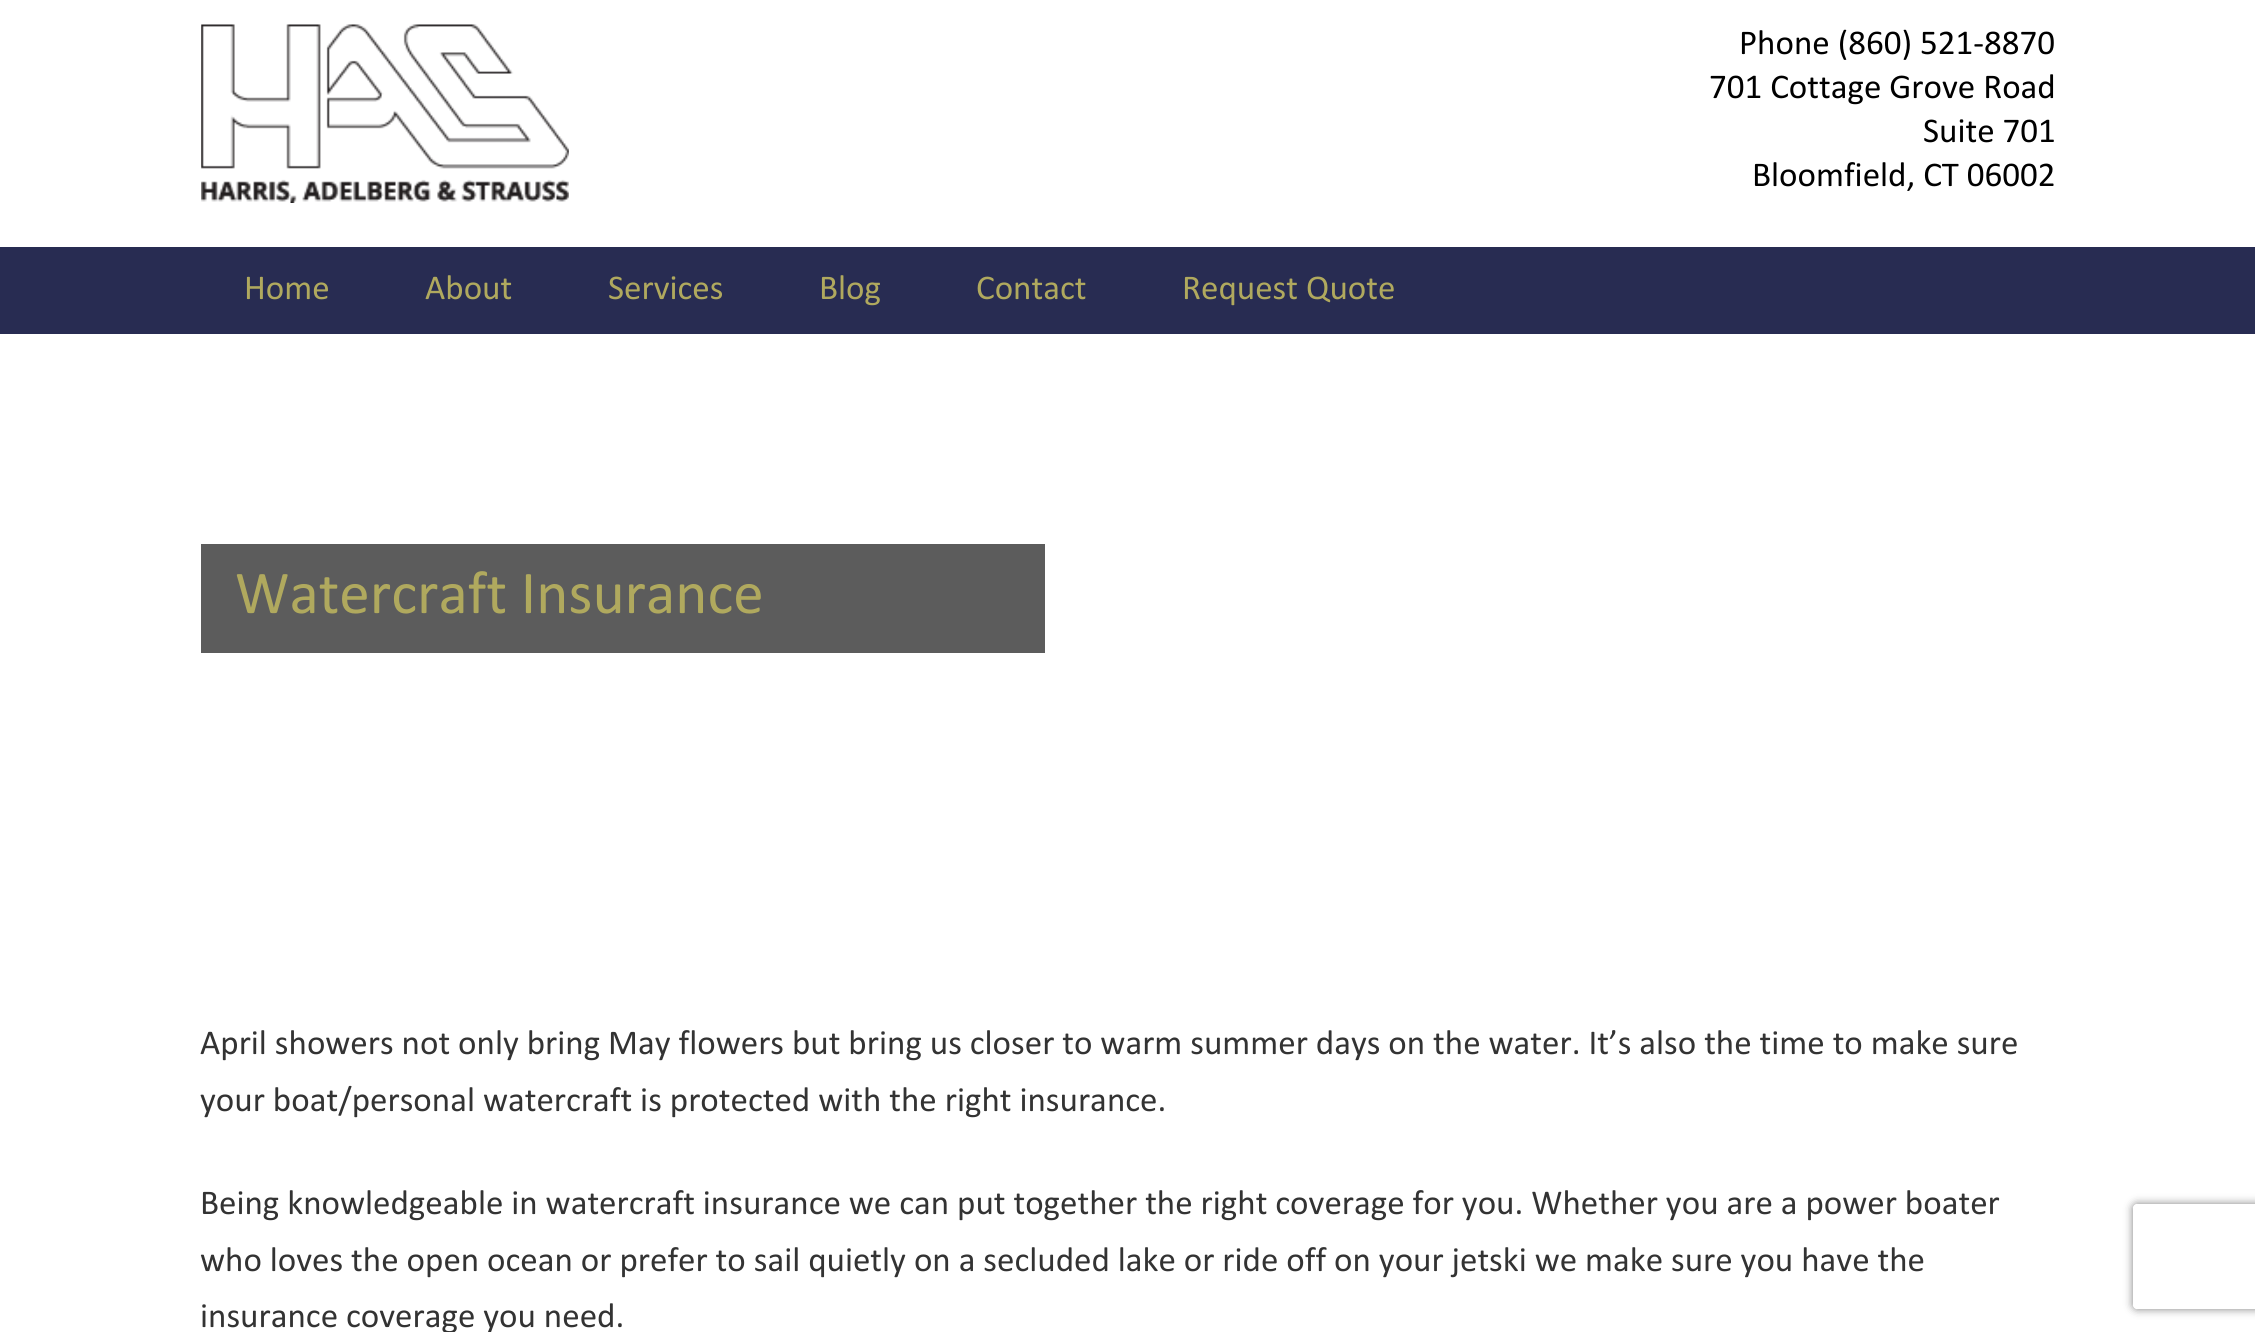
import math
import cairocffi as cairo

surface = cairo.ImageSurface(cairo.FORMAT_RGB24, 2255, 1332)
cr = cairo.Context(surface)
options = cairo.FontOptions()
options.set_hint_metrics(cairo.HINT_METRICS_OFF)
options.set_hint_style(cairo.HINT_STYLE_NONE)
cr.set_font_options(options)
cr.set_miter_limit(4)


def use_color(code):
    cr.set_source_rgb(*(v / 255 for v in bytes.fromhex(code[-6:])))


def round_rect(x, y, w, h, r):
    cr.new_sub_path()
    for i, (u, v) in enumerate([(x + w - r, y + h - r), (x + r, y + h - r), (x + r, y + r), (x + w - r, y + r)]):
        cr.arc(u, v, r, i * math.pi / 2, (i + 1) * math.pi / 2)
    cr.close_path()


def shadow(x, y, w, h, r, blur, alpha):
    cr.push_group_with_content(cairo.CONTENT_ALPHA)
    cr.set_operator(cairo.OPERATOR_SOURCE)
    for i in range(15, -16, -2):
        e = blur * i / 6
        if min(w, h) + 2 * e > 0:
            cr.set_source_rgba(0, 0, 0, alpha * math.erfc((i - 1) / 8.5) / 2)
            round_rect(x - e, y - e, w + 2 * e, h + 2 * e, max(0, min(r + e + blur * .6, min(w, h) / 2 + e)))
            cr.fill()
    cr.mask(cr.pop_group())


def picture(path, x, y, w, h):
    cr.save()
    cr.set_source_surface(cairo.ImageSurface.create_from_png(path), x, y)
    cr.rectangle(x, y, w, h)
    cr.fill()
    cr.restore()


use_color("#ffffff")
cr.paint()
picture("img1.png", 201, 24, 368, 179)
cr.select_font_face("Calibri")
cr.set_font_size(35)
use_color("#000000")
cr.move_to(1739, 54)
cr.show_text("Phone (860) 521-8870")
cr.move_to(1709, 98)
cr.show_text("701 Cottage Grove Road")
cr.move_to(1923, 142)
cr.show_text("Suite 701")
cr.move_to(1752, 186)
cr.show_text("Bloomfield, CT 06002")
use_color("#282c52")
cr.rectangle(0, 247, 2255, 87)
cr.fill()
use_color("#b0a95e")
cr.move_to(244, 299)
cr.show_text("Home")
cr.move_to(425, 299)
cr.show_text("About")
cr.move_to(608, 299)
cr.show_text("Services")
cr.move_to(819, 299)
cr.show_text("Blog")
cr.move_to(976, 299)
cr.show_text("Contact")
cr.move_to(1182, 299)
cr.show_text("Request Quote")
use_color("#5c5c5c")
cr.rectangle(201, 544, 844, 109)
cr.fill()
cr.set_font_size(61.25)
use_color("#b0a95e")
cr.move_to(235, 613)
cr.show_text("Watercraft Insurance")
cr.set_font_size(35)
use_color("#333333")
cr.move_to(200, 1054)
cr.show_text("April showers not only bring May flowers but bring us closer to warm summer days on the water. It’s also the time to make sure")
cr.move_to(200, 1111)
cr.show_text("your boat/personal watercraft is protected with the right insurance.")
cr.move_to(200, 1214)
cr.show_text("Being knowledgeable in watercraft insurance we can put together the right coverage for you. Whether you are a power boater")
cr.move_to(200, 1271)
cr.show_text("who loves the open ocean or prefer to sail quietly on a secluded lake or ride off on your jetski we make sure you have the")
cr.move_to(200, 1327)
cr.show_text("insurance coverage you need.")
cr.save()
cr.set_fill_rule(cairo.FILL_RULE_EVEN_ODD)
cr.new_path()
cr.move_to(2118, 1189)
cr.line_to(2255, 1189)
cr.line_to(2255, 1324)
cr.line_to(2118, 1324)
cr.close_path()
cr.move_to(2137, 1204)
cr.line_to(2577, 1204)
cr.curve_to(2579, 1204, 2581, 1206, 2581, 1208)
cr.line_to(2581, 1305)
cr.curve_to(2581, 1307, 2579, 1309, 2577, 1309)
cr.line_to(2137, 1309)
cr.curve_to(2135, 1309, 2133, 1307, 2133, 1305)
cr.line_to(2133, 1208)
cr.curve_to(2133, 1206, 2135, 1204, 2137, 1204)
cr.close_path()
cr.clip()
use_color("#808080")
shadow(2133, 1204, 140, 105, 4, 4.5, 1)
cr.restore()
surface.write_to_png("result.png")
